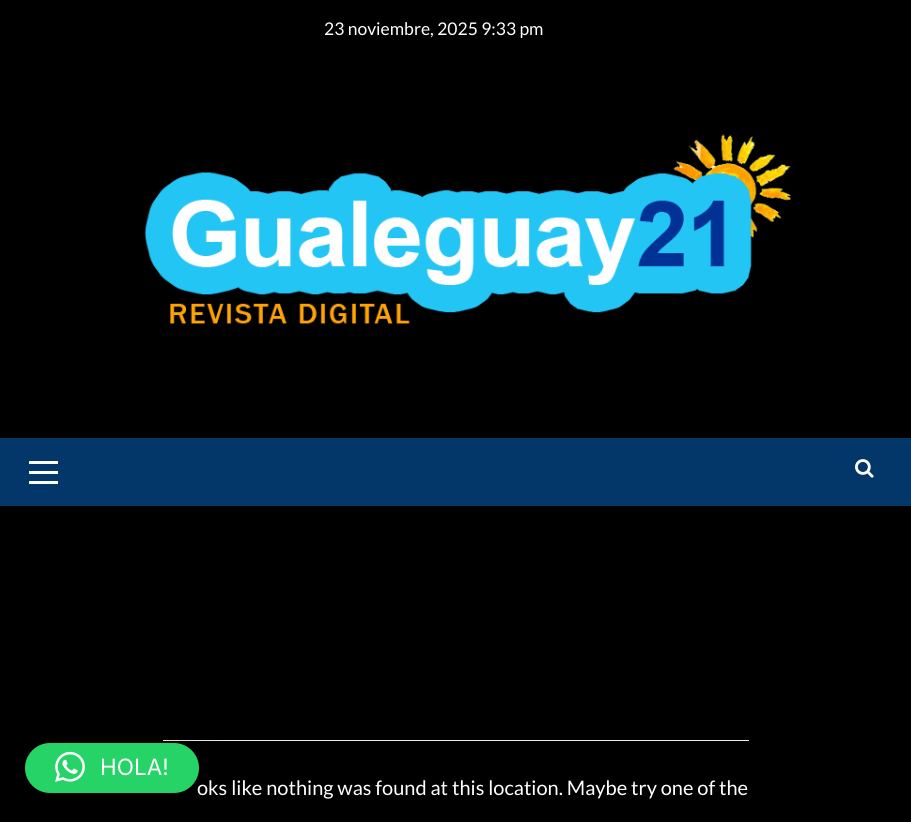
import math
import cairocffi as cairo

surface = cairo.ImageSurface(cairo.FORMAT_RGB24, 911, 822)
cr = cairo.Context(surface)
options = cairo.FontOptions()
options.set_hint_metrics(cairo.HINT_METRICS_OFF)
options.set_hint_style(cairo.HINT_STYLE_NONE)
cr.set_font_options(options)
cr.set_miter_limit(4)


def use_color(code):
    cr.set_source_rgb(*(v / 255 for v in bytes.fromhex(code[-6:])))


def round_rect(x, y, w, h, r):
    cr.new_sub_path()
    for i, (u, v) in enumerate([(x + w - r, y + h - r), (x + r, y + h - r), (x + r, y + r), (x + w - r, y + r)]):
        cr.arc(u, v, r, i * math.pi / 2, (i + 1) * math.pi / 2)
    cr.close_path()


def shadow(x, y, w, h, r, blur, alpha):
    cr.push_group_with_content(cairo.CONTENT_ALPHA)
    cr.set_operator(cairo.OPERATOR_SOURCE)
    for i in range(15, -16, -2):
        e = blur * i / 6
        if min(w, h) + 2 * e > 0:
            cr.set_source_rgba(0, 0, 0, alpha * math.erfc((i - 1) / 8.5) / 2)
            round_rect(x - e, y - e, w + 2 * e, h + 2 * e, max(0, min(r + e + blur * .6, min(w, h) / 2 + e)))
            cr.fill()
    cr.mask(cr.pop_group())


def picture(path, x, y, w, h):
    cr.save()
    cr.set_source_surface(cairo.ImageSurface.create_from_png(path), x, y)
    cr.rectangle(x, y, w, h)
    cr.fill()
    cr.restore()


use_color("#000000")
cr.paint()
use_color("#eeeeee")
cr.rectangle(163, 740, 586, 1)
cr.fill()
use_color("#000000")
shadow(25, 745, 174, 50, 25, 20, 0.16)
cr.select_font_face("Lato")
cr.set_font_size(20)
use_color("#ffffff")
cr.move_to(197, 795)
cr.show_text("oks like nothing was found at this location. Maybe try one of the")
use_color("#25d366")
round_rect(25, 743, 174, 50, 25)
cr.fill()
picture("img1.png", 55, 751, 30, 31)
cr.select_font_face("Inter")
cr.set_font_size(22.5)
use_color("#ffffff")
cr.move_to(100, 775)
cr.show_text("HOLA!")
cr.select_font_face("Lato")
cr.set_font_size(17.5)
cr.move_to(324, 35)
cr.show_text("23 noviembre, 2025 9:33 pm")
picture("img2.png", 144, 134, 647, 190)
use_color("#033669")
cr.rectangle(0, 438, 911, 68)
cr.fill()
use_color("#ffffff")
cr.rectangle(29, 471, 29, 3)
cr.fill()
cr.rectangle(29, 461, 29, 3)
cr.fill()
cr.rectangle(29, 481, 29, 3)
cr.fill()
picture("img3.png", 855, 459, 19, 19)
surface.write_to_png("result.png")
